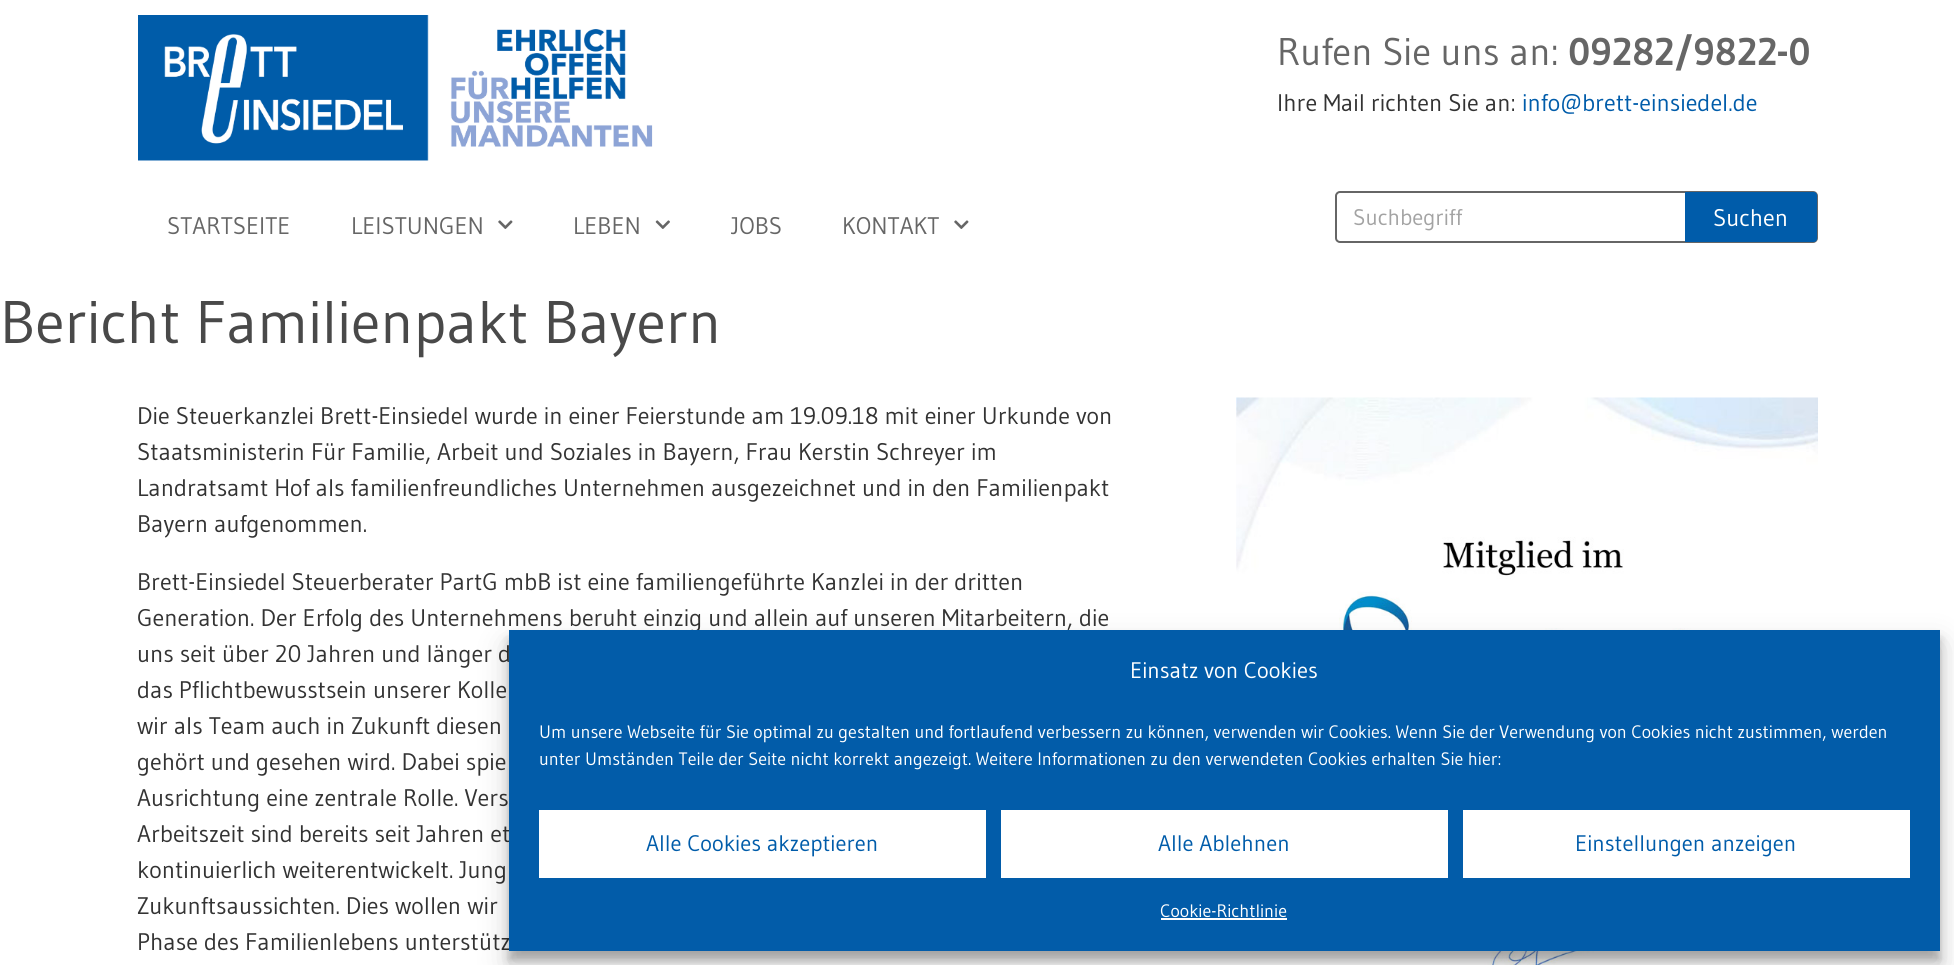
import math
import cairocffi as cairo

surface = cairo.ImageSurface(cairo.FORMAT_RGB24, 1954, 965)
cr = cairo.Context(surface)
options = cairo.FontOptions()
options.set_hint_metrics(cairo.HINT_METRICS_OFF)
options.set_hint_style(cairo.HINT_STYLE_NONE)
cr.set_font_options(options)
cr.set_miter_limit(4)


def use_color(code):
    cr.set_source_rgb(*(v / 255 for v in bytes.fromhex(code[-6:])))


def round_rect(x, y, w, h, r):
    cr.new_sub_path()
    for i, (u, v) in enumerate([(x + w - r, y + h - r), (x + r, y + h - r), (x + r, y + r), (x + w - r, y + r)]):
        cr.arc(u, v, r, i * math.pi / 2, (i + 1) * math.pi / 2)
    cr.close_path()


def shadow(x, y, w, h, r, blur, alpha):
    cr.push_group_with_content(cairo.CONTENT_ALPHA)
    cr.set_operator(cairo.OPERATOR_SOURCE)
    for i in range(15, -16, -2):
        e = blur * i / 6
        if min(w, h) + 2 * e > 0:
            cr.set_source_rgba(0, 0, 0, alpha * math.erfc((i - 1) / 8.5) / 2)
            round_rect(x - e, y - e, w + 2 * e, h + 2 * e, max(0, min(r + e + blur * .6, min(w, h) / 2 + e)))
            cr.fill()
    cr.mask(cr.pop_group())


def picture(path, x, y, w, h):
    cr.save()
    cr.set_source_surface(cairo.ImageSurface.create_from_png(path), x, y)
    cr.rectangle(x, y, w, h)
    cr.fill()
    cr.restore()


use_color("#ffffff")
cr.paint()
picture("img1.png", 138, 15, 515, 146)
cr.select_font_face("Gudea")
cr.set_font_size(38.5)
use_color("#666666")
cr.move_to(1277, 65)
cr.show_text("Rufen Sie uns an:")
cr.select_font_face("Gudea", cairo.FONT_SLANT_NORMAL, cairo.FONT_WEIGHT_BOLD)
cr.move_to(1568, 65)
cr.show_text("09282/9822-0")
cr.select_font_face("Gudea")
cr.set_font_size(24)
use_color("#333333")
cr.move_to(1277, 111)
cr.show_text("Ihre Mail richten Sie an:")
use_color("#005caa")
cr.move_to(1522, 111)
cr.show_text("info@brett-einsiedel.de")
use_color("#666666")
cr.move_to(167, 234)
cr.show_text("STARTSEITE")
cr.move_to(351, 234)
cr.show_text("LEISTUNGEN")
picture("img2.png", 498, 220, 15, 9)
cr.move_to(573, 234)
cr.show_text("LEBEN")
picture("img3.png", 655, 220, 15, 9)
cr.move_to(731, 234)
cr.show_text("JOBS")
cr.move_to(842, 234)
cr.show_text("KONTAKT")
picture("img2.png", 954, 220, 15, 9)
round_rect(1336, 192, 481, 50, 4)
cr.stroke()
cr.set_font_size(22.5)
use_color("#a3a3a3")
cr.move_to(1353, 225)
cr.show_text("Suchbegriff")
use_color("#005caa")
cr.new_path()
cr.move_to(1685, 192)
cr.line_to(1814, 192)
cr.curve_to(1815.5, 192, 1817, 193.5, 1817, 195)
cr.line_to(1817, 239)
cr.curve_to(1817, 240.5, 1815.5, 242, 1814, 242)
cr.line_to(1685, 242)
cr.close_path()
cr.fill()
cr.set_font_size(24)
use_color("#ffffff")
cr.move_to(1713, 226)
cr.show_text("Suchen")
cr.set_font_size(60)
use_color("#494949")
cr.move_to(0, 343)
cr.show_text("Bericht Familienpakt Bayern")
cr.set_font_size(24)
use_color("#333333")
cr.move_to(137, 424)
cr.show_text("Die Steuerkanzlei Brett-Einsiedel wurde in einer Feierstunde am 19.09.18 mit einer Urkunde von")
cr.move_to(137, 460)
cr.show_text("Staatsministerin Für Familie, Arbeit und Soziales in Bayern, Frau Kerstin Schreyer im")
cr.move_to(137, 496)
cr.show_text("Landratsamt Hof als familienfreundliches Unternehmen ausgezeichnet und in den Familienpakt")
cr.move_to(137, 532)
cr.show_text("Bayern aufgenommen.")
cr.move_to(137, 590)
cr.show_text("Brett-Einsiedel Steuerberater PartG mbB ist eine familiengeführte Kanzlei in der dritten")
cr.move_to(137, 626)
cr.show_text("Generation. Der Erfolg des Unternehmens beruht einzig und allein auf unseren Mitarbeitern, die")
cr.move_to(137, 662)
cr.show_text("uns seit über 20 Jahren und länger d")
cr.move_to(137, 698)
cr.show_text("das Pflichtbewusstsein unserer Kolle")
cr.move_to(137, 734)
cr.show_text("wir als Team auch in Zukunft diesen")
cr.move_to(137, 770)
cr.show_text("gehört und gesehen wird. Dabei spie")
cr.move_to(137, 806)
cr.show_text("Ausrichtung eine zentrale Rolle. Vers")
cr.move_to(137, 842)
cr.show_text("Arbeitszeit sind bereits seit Jahren et")
cr.move_to(137, 878)
cr.show_text("kontinuierlich weiterentwickelt. Jung")
cr.move_to(137, 914)
cr.show_text("Zukunftsaussichten. Dies wollen wir")
cr.move_to(137, 950)
cr.show_text("Phase des Familienlebens unterstütz")
picture("img4.png", 1236, 397, 582, 568)
use_color("#000000")
shadow(509, 639, 1431, 321, 0, 4.5, 0.23)
shadow(509, 645, 1431, 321, 0, 15, 0.19)
use_color("#025ca9")
cr.rectangle(509, 630, 1431, 321)
cr.fill()
cr.set_font_size(22.5)
use_color("#ffffff")
cr.move_to(1130, 678)
cr.show_text("Einsatz von Cookies")
cr.set_font_size(18)
cr.move_to(539, 738)
cr.show_text("Um unsere Webseite für Sie optimal zu gestalten und fortlaufend verbessern zu können, verwenden wir Cookies. Wenn Sie der Verwendung von Cookies nicht zustimmen, werden")
cr.move_to(539, 765)
cr.show_text("unter Umständen Teile der Seite nicht korrekt angezeigt. Weitere Informationen zu den verwendeten Cookies erhalten Sie hier:")
cr.rectangle(539, 810, 447, 68)
cr.fill()
cr.set_font_size(22.5)
use_color("#005caa")
cr.move_to(646, 851)
cr.show_text("Alle Cookies akzeptieren")
use_color("#ffffff")
cr.rectangle(1001, 810, 447, 68)
cr.fill()
use_color("#005caa")
cr.move_to(1158, 851)
cr.show_text("Alle Ablehnen")
use_color("#ffffff")
cr.rectangle(1463, 810, 447, 68)
cr.fill()
use_color("#005caa")
cr.move_to(1575, 851)
cr.show_text("Einstellungen anzeigen")
cr.set_font_size(18)
use_color("#ffffff")
cr.move_to(1160, 917)
cr.show_text("Cookie-Richtlinie")
cr.rectangle(1161, 918, 126, 2)
cr.fill()
surface.write_to_png("result.png")
